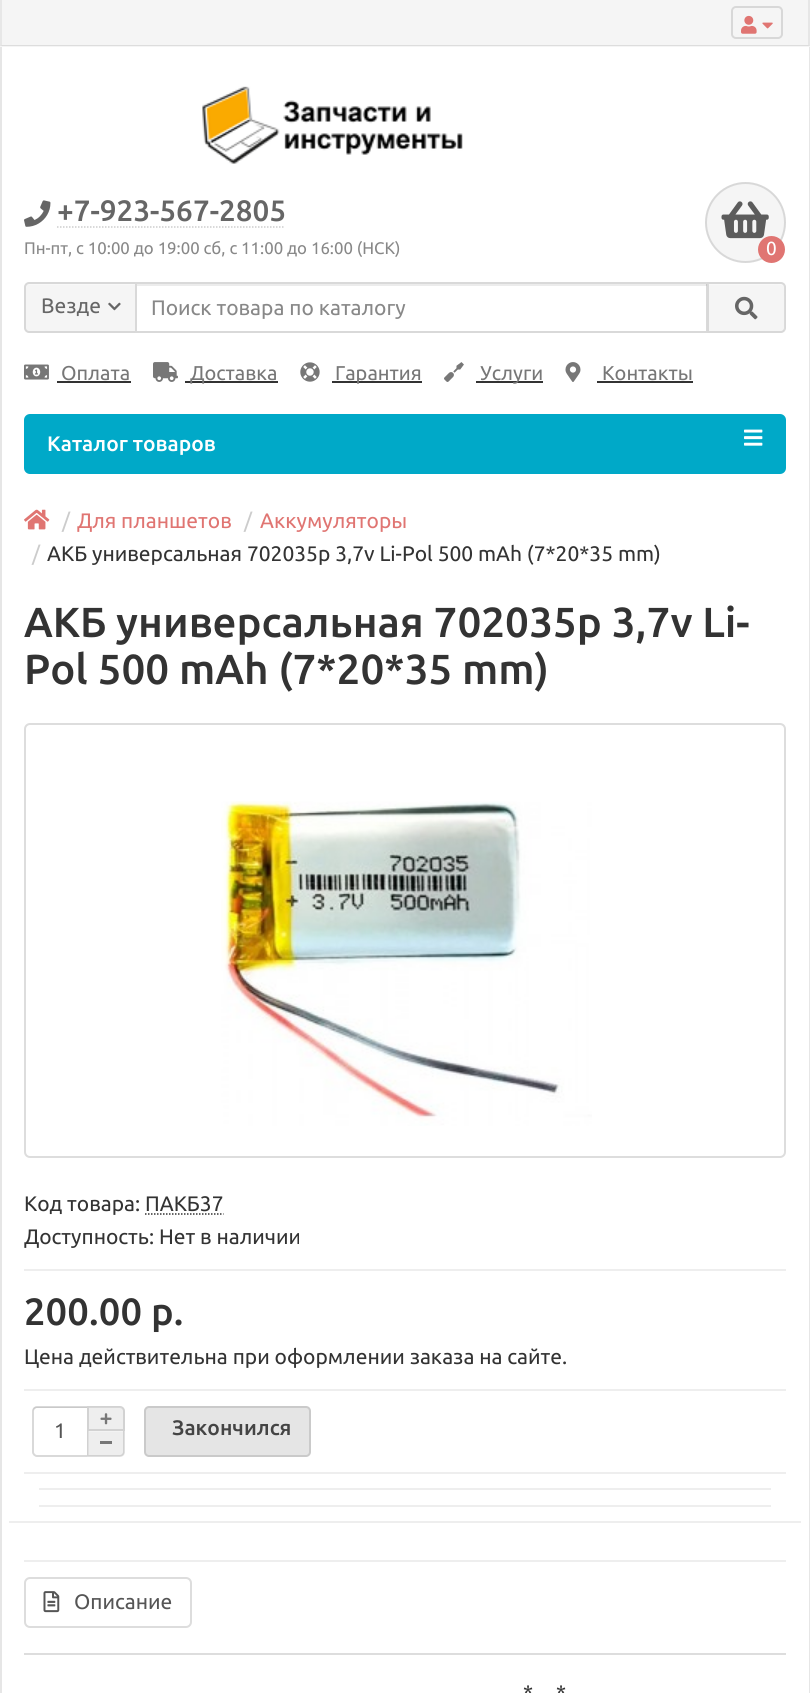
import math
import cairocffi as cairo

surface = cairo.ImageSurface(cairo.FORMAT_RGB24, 810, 1693)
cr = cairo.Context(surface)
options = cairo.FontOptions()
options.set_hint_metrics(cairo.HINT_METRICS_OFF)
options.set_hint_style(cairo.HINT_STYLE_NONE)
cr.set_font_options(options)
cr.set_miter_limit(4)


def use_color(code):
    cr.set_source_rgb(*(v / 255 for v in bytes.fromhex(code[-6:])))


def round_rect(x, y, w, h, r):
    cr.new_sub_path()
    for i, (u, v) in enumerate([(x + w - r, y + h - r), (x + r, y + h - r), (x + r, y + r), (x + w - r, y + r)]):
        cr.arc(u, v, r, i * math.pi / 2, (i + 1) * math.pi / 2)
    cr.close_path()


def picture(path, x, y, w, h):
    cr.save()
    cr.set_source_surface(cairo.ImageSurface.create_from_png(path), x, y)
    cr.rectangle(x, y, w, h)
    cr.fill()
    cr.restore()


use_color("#ffffff")
cr.paint()
use_color("#f5f5f5")
cr.rectangle(0, 0, 810, 47)
cr.fill()
use_color("#e6e6e6")
cr.new_path()
cr.move_to(810, -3)
cr.line_to(810, 46)
cr.line_to(808, 45)
cr.line_to(808, -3)
cr.close_path()
cr.fill()
cr.set_source_rgba(0, 0, 0, 0.1)
cr.new_path()
cr.move_to(810, 46)
cr.line_to(0, 46)
cr.line_to(2, 45)
cr.line_to(808, 45)
cr.close_path()
cr.fill()
cr.set_source_rgba(0, 0, 0, 0.06)
cr.new_path()
cr.move_to(0, 46)
cr.line_to(0, -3)
cr.line_to(2, -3)
cr.line_to(2, 45)
cr.close_path()
cr.fill()
round_rect(732, 7, 50, 31, 4)
use_color("#d8d8d8")
cr.stroke()
picture("img1.png", 741, 15, 16, 19)
picture("img2.png", 762, 22, 11, 7)
use_color("#e6e6e6")
cr.rectangle(809, 47, 1, 457)
cr.fill()
cr.rectangle(0, 47, 2, 457)
cr.fill()
picture("img3.png", 202, 86, 261, 78)
picture("img4.png", 24, 200, 27, 27)
cr.select_font_face("Ubuntu Medium")
cr.set_font_size(29.5)
use_color("#666666")
cr.move_to(57, 221)
cr.show_text("+7-923-567-2805")
cr.new_path()
cr.move_to(57, 227)
cr.line_to(285, 227)
use_color("#cccccc")
cr.set_line_width(1.5)
cr.set_dash([1.5, 1.5])
cr.stroke()
cr.select_font_face("Ubuntu")
cr.set_font_size(16.8)
use_color("#888888")
cr.move_to(24, 254)
cr.show_text("Пн-пт, с 10:00 до 19:00 сб, с 11:00 до 16:00 (НСК)")
use_color("#f5f5f5")
cr.new_path()
cr.arc(745.5, 222.5, 40.5, 0, 2 * math.pi)
cr.fill()
cr.arc(745.5, 222.5, 39.5, 0, 2 * math.pi)
cr.set_source_rgba(0, 0, 0, 0.12)
cr.set_line_width(2)
cr.set_dash([])
cr.stroke()
picture("img5.png", 721, 201, 48, 38)
use_color("#e07572")
cr.arc(771.5, 249.5, 13.5, 0, 2 * math.pi)
cr.fill()
cr.set_font_size(19)
use_color("#ffffff")
cr.move_to(766, 255)
cr.show_text("0")
use_color("#f5f5f5")
cr.new_path()
cr.move_to(29, 282)
cr.line_to(138, 282)
cr.line_to(138, 333)
cr.line_to(29, 333)
cr.curve_to(26, 333, 24, 331, 24, 328)
cr.line_to(24, 287)
cr.curve_to(24, 284, 26, 282, 29, 282)
cr.close_path()
cr.fill()
use_color("#f8f8f8")
cr.new_path()
cr.move_to(28, 285)
cr.line_to(136, 285)
cr.line_to(136, 332)
cr.line_to(137, 332)
cr.line_to(137, 284)
cr.line_to(29, 284)
cr.curve_to(27, 284, 26, 285, 26, 287)
cr.line_to(26, 288)
cr.curve_to(26, 286, 27, 285, 28, 285)
cr.close_path()
cr.fill()
cr.new_path()
cr.move_to(29, 283)
cr.line_to(137, 283)
cr.line_to(137, 332)
cr.line_to(29, 332)
cr.curve_to(27, 332, 25, 330, 25, 328)
cr.line_to(25, 287)
cr.curve_to(25, 285, 27, 283, 29, 283)
cr.close_path()
cr.set_source_rgba(0, 0, 0, 0.12)
cr.stroke()
cr.set_font_size(21)
use_color("#666666")
cr.move_to(41, 313)
cr.show_text("Везде")
picture("img6.png", 108, 302, 13, 9)
use_color("#ffffff")
cr.rectangle(135, 282, 3, 51)
cr.fill()
use_color("#ececec")
cr.rectangle(137, 284, 570, 2)
cr.fill()
cr.rectangle(136, 283, 571, 49)
cr.set_source_rgba(0, 0, 0, 0.15)
cr.stroke()
use_color("#888888")
cr.move_to(151, 315)
cr.show_text("Поиск товара по каталогу")
use_color("#f5f5f5")
cr.new_path()
cr.move_to(707, 282)
cr.line_to(781, 282)
cr.curve_to(784, 282, 786, 284, 786, 287)
cr.line_to(786, 328)
cr.curve_to(786, 331, 784, 333, 781, 333)
cr.line_to(707, 333)
cr.close_path()
cr.fill()
use_color("#f8f8f8")
cr.new_path()
cr.move_to(708, 285)
cr.line_to(770, 285)
cr.curve_to(788, 285, 784, 283, 784, 302)
cr.line_to(784, 331)
cr.curve_to(785, 331, 785, 330, 785, 329)
cr.line_to(785, 287)
cr.curve_to(785, 285, 784, 284, 782, 284)
cr.line_to(708, 284)
cr.close_path()
cr.fill()
cr.new_path()
cr.move_to(708, 283)
cr.line_to(781, 283)
cr.curve_to(783, 283, 785, 285, 785, 287)
cr.line_to(785, 328)
cr.curve_to(785, 330, 783, 332, 781, 332)
cr.line_to(708, 332)
cr.close_path()
cr.set_source_rgba(0, 0, 0, 0.12)
cr.stroke()
picture("img7.png", 735, 296, 23, 24)
picture("img8.png", 24, 364, 25, 16)
cr.set_font_size(20)
use_color("#777777")
cr.move_to(61, 380)
cr.show_text("Оплата")
use_color("#333333")
cr.rectangle(57, 381, 74, 2)
cr.fill()
picture("img9.png", 153, 362, 25, 20)
cr.rectangle(185, 381, 93, 2)
cr.fill()
use_color("#777777")
cr.move_to(190, 380)
cr.show_text("Доставка")
picture("img10.png", 300, 362, 20, 20)
use_color("#333333")
cr.rectangle(332, 381, 90, 2)
cr.fill()
use_color("#777777")
cr.move_to(335, 380)
cr.show_text("Гарантия")
picture("img11.png", 444, 362, 20, 20)
use_color("#333333")
cr.rectangle(476, 381, 67, 2)
cr.fill()
use_color("#777777")
cr.move_to(480, 380)
cr.show_text("Услуги")
picture("img12.png", 565, 362, 16, 20)
cr.move_to(602, 380)
cr.show_text("Контакты")
use_color("#333333")
cr.rectangle(597, 381, 96, 2)
cr.fill()
use_color("#00a9c8")
round_rect(24, 414, 762, 60, 6)
cr.fill()
cr.select_font_face("Ubuntu Medium")
cr.set_font_size(21)
use_color("#ffffff")
cr.move_to(47, 451)
cr.show_text("Каталог товаров")
picture("img13.png", 744, 429, 19, 17)
use_color("#e6e6e6")
cr.rectangle(809, 504, 1, 1189)
cr.fill()
cr.rectangle(0, 504, 2, 1189)
cr.fill()
picture("img14.png", 24, 509, 26, 21)
cr.select_font_face("Ubuntu")
use_color("#cccccc")
cr.move_to(62, 528)
cr.show_text("/")
use_color("#e07572")
cr.move_to(77, 528)
cr.show_text("Для планшетов")
use_color("#cccccc")
cr.move_to(244, 528)
cr.show_text("/")
use_color("#e07572")
cr.move_to(260, 528)
cr.show_text("Аккумуляторы")
use_color("#cccccc")
cr.move_to(32, 561)
cr.show_text("/")
use_color("#333333")
cr.move_to(47, 561)
cr.show_text("АКБ универсальная 702035p 3,7v Li-Pol 500 mAh (7*20*35 mm)")
cr.select_font_face("Ubuntu Medium")
cr.set_font_size(42)
cr.move_to(24, 637)
cr.show_text("АКБ универсальная 702035p 3,7v Li-")
cr.move_to(24, 684)
cr.show_text("Pol 500 mAh (7*20*35 mm)")
round_rect(25, 724, 760, 433, 5)
use_color("#dddddd")
cr.stroke()
picture("img15.png", 221, 801, 371, 325)
cr.select_font_face("Ubuntu")
cr.set_font_size(21)
use_color("#333333")
cr.move_to(24, 1211)
cr.show_text("Код товара: ПАКБ37")
cr.new_path()
cr.move_to(145, 1214)
cr.line_to(223.5, 1214)
cr.set_line_width(1.5)
cr.set_dash([1.5, 1.5])
cr.stroke()
cr.move_to(24, 1244)
cr.show_text("Доступность: Нет в наличии")
use_color("#eeeeee")
cr.rectangle(24, 1269, 762, 2)
cr.fill()
cr.select_font_face("Ubuntu Medium")
cr.set_font_size(38)
use_color("#333333")
cr.move_to(24, 1325)
cr.show_text("200.00 р.")
cr.select_font_face("Ubuntu")
cr.set_font_size(21)
cr.move_to(24, 1364)
cr.show_text("Цена действительна при оформлении заказа на сайте.")
use_color("#eeeeee")
cr.rectangle(24, 1389, 762, 2)
cr.fill()
use_color("#ececec")
cr.new_path()
cr.move_to(36, 1408)
cr.line_to(87, 1408)
cr.line_to(87, 1407)
cr.line_to(36, 1407)
cr.curve_to(34, 1407, 33, 1408, 33, 1410)
cr.line_to(33, 1411)
cr.line_to(34, 1409)
cr.close_path()
cr.fill()
cr.new_path()
cr.move_to(37, 1407)
cr.line_to(88, 1407)
cr.line_to(88, 1456)
cr.line_to(37, 1456)
cr.curve_to(35, 1456, 33, 1454, 33, 1452)
cr.line_to(33, 1411)
cr.curve_to(33, 1409, 35, 1407, 37, 1407)
cr.close_path()
cr.set_source_rgba(0, 0, 0, 0.15)
cr.set_line_width(2)
cr.set_dash([])
cr.stroke()
use_color("#555555")
cr.move_to(54, 1438)
cr.show_text("1")
use_color("#eeeeee")
cr.new_path()
cr.move_to(87, 1406)
cr.line_to(120, 1406)
cr.curve_to(123, 1406, 125, 1408, 125, 1411)
cr.line_to(125, 1431)
cr.line_to(87, 1431)
cr.close_path()
cr.fill()
use_color("#f3f3f3")
cr.new_path()
cr.move_to(89, 1407)
cr.line_to(89, 1408)
cr.line_to(120, 1408)
cr.curve_to(122, 1408, 123, 1410, 123, 1412)
cr.curve_to(123, 1410, 123, 1407, 120, 1407)
cr.close_path()
cr.fill()
cr.new_path()
cr.move_to(88, 1407)
cr.line_to(120, 1407)
cr.curve_to(122, 1407, 124, 1409, 124, 1411)
cr.line_to(124, 1430)
cr.line_to(88, 1430)
cr.close_path()
cr.set_source_rgba(0, 0, 0, 0.12)
cr.stroke()
picture("img16.png", 100, 1413, 12, 12)
use_color("#eeeeee")
cr.new_path()
cr.move_to(87, 1431)
cr.line_to(125, 1431)
cr.line_to(125, 1452)
cr.curve_to(125, 1455, 123, 1457, 120, 1457)
cr.line_to(87, 1457)
cr.close_path()
cr.fill()
use_color("#f3f3f3")
cr.rectangle(89, 1431, 34, 1)
cr.fill()
use_color("#d1d1d1")
cr.set_fill_rule(cairo.FILL_RULE_EVEN_ODD)
cr.new_path()
cr.move_to(87, 1431)
cr.line_to(124.5, 1431)
cr.line_to(124.5, 1452)
cr.curve_to(124.5, 1454.5, 122.5, 1456.5, 120, 1456.5)
cr.line_to(87, 1456.5)
cr.close_path()
cr.move_to(88.5, 1431)
cr.line_to(123, 1431)
cr.line_to(123, 1452)
cr.curve_to(123, 1453.5, 121.5, 1455, 120, 1455)
cr.line_to(88.5, 1455)
cr.close_path()
cr.fill()
use_color("#777777")
cr.rectangle(100, 1441, 12, 3)
cr.fill()
use_color("#e5e5e5")
round_rect(144, 1406, 167, 51, 5)
cr.fill()
round_rect(145, 1407, 165, 49, 4)
cr.set_source_rgba(0, 0, 0, 0.12)
cr.stroke()
cr.select_font_face("Ubuntu Medium")
use_color("#444444")
cr.move_to(172, 1435)
cr.show_text("Закончился")
use_color("#eeeeee")
cr.rectangle(24, 1472, 762, 2)
cr.fill()
cr.rectangle(39, 1488, 732, 2)
cr.fill()
cr.rectangle(39, 1505, 732, 2)
cr.fill()
cr.rectangle(9, 1521, 792, 2)
cr.fill()
cr.rectangle(24, 1560, 762, 2)
cr.fill()
use_color("#dddddd")
cr.rectangle(24, 1653, 762, 2)
cr.fill()
round_rect(25, 1578, 166, 49, 5)
cr.stroke()
picture("img17.png", 43, 1591, 17, 22)
cr.select_font_face("Ubuntu")
use_color("#555555")
cr.move_to(74, 1609)
cr.show_text("Описание")
use_color("#333333")
cr.move_to(523, 1700)
cr.show_text("*")
cr.move_to(556, 1700)
cr.show_text("*")
surface.write_to_png("result.png")
